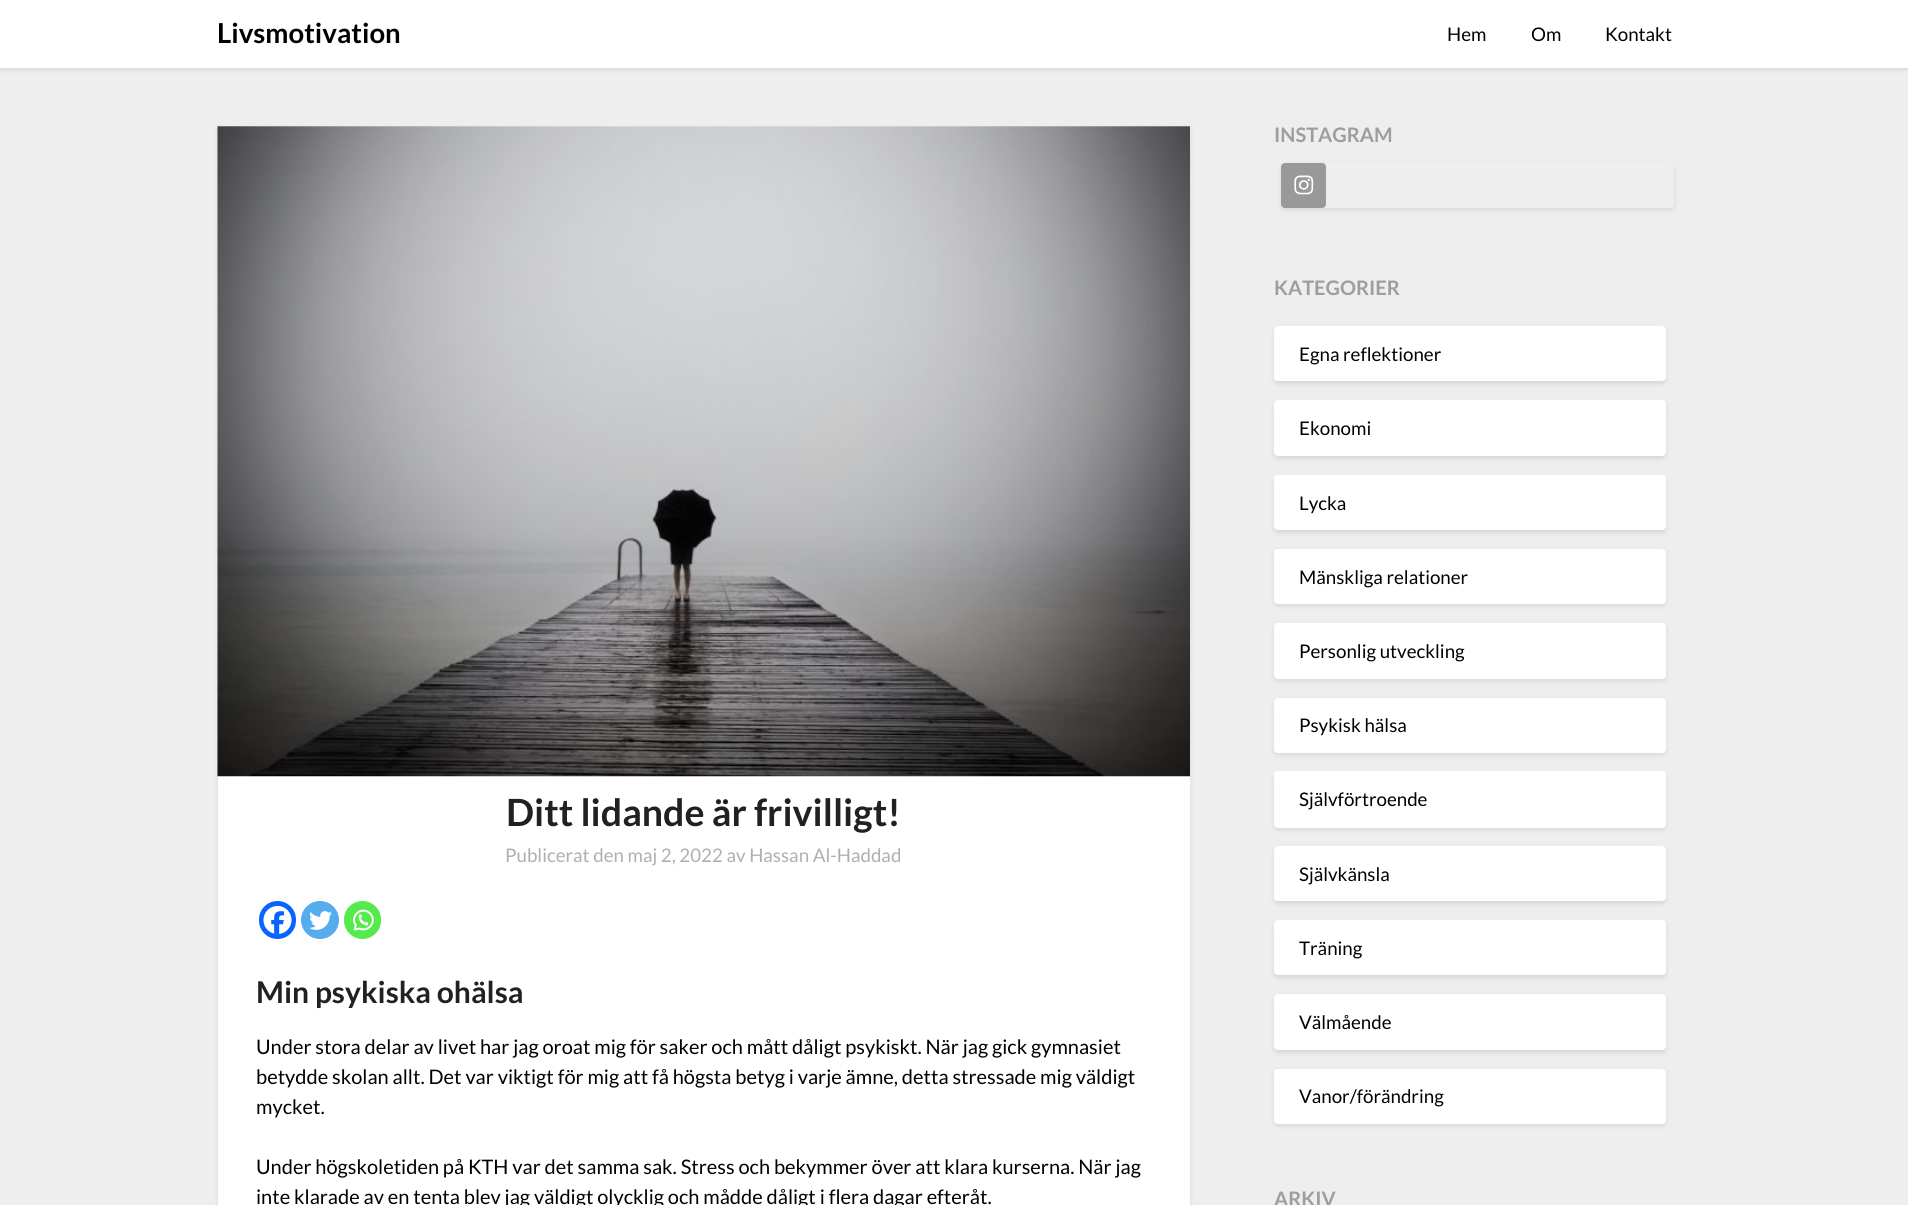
import math
import cairocffi as cairo

surface = cairo.ImageSurface(cairo.FORMAT_RGB24, 1908, 1205)
cr = cairo.Context(surface)
options = cairo.FontOptions()
options.set_hint_metrics(cairo.HINT_METRICS_OFF)
options.set_hint_style(cairo.HINT_STYLE_NONE)
cr.set_font_options(options)
cr.set_miter_limit(4)


def use_color(code):
    cr.set_source_rgb(*(v / 255 for v in bytes.fromhex(code[-6:])))


def round_rect(x, y, w, h, r):
    cr.new_sub_path()
    for i, (u, v) in enumerate([(x + w - r, y + h - r), (x + r, y + h - r), (x + r, y + r), (x + w - r, y + r)]):
        cr.arc(u, v, r, i * math.pi / 2, (i + 1) * math.pi / 2)
    cr.close_path()


def shadow(x, y, w, h, r, blur, alpha):
    cr.push_group_with_content(cairo.CONTENT_ALPHA)
    cr.set_operator(cairo.OPERATOR_SOURCE)
    for i in range(15, -16, -2):
        e = blur * i / 6
        if min(w, h) + 2 * e > 0:
            cr.set_source_rgba(0, 0, 0, alpha * math.erfc((i - 1) / 8.5) / 2)
            round_rect(x - e, y - e, w + 2 * e, h + 2 * e, max(0, min(r + e + blur * .6, min(w, h) / 2 + e)))
            cr.fill()
    cr.mask(cr.pop_group())


def picture(path, x, y, w, h):
    cr.save()
    cr.set_source_surface(cairo.ImageSurface.create_from_png(path), x, y)
    cr.rectangle(x, y, w, h)
    cr.fill()
    cr.restore()


use_color("#eeeeee")
cr.paint()
use_color("#000000")
shadow(0, 3, 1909, 67, 0, 2.5, 0.1)
use_color("#ffffff")
cr.rectangle(0, 0, 1908, 68)
cr.fill()
cr.select_font_face("Lato", cairo.FONT_SLANT_NORMAL, cairo.FONT_WEIGHT_BOLD)
cr.set_font_size(27.5)
use_color("#000000")
cr.move_to(217, 43)
cr.show_text("Livsmotivation")
cr.select_font_face("Lato")
cr.set_font_size(18.75)
cr.move_to(1447, 41)
cr.show_text("Hem")
cr.move_to(1531, 41)
cr.show_text("Om")
cr.move_to(1605, 41)
cr.show_text("Kontakt")
use_color("#000000")
shadow(218, 129, 972, 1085, 1, 2.5, 0.1)
use_color("#ffffff")
round_rect(218, 126, 972, 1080, 1)
cr.fill()
picture("img1.png", 217, 126, 973, 651)
cr.select_font_face("Lato", cairo.FONT_SLANT_NORMAL, cairo.FONT_WEIGHT_BOLD)
cr.set_font_size(37.5)
use_color("#212121")
cr.move_to(506, 826)
cr.show_text("Ditt lidande är frivilligt!")
cr.select_font_face("Lato")
cr.set_font_size(18.75)
use_color("#afafaf")
cr.move_to(505, 862)
cr.show_text("Publicerat den maj 2, 2022 av Hassan Al-Haddad")
use_color("#0765fe")
round_rect(259, 901, 37, 38, 18.5)
cr.fill()
picture("img2.png", 263, 905, 29, 29)
use_color("#55acee")
cr.arc(320, 920, 19, 0, 2 * math.pi)
cr.fill()
picture("img3.png", 309, 911, 23, 19)
use_color("#55eb4c")
round_rect(344, 901, 37, 38, 18.5)
cr.fill()
picture("img4.png", 353, 909, 21, 22)
cr.select_font_face("Lato", cairo.FONT_SLANT_NORMAL, cairo.FONT_WEIGHT_BOLD)
cr.set_font_size(30)
use_color("#212121")
cr.move_to(256, 1003)
cr.show_text("Min psykiska ohälsa")
cr.select_font_face("Lato")
cr.set_font_size(20)
use_color("#000000")
cr.move_to(256, 1054)
cr.show_text("Under stora delar av livet har jag oroat mig för saker och mått dåligt psykiskt. När jag gick gymnasiet")
cr.move_to(256, 1084)
cr.show_text("betydde skolan allt. Det var viktigt för mig att få högsta betyg i varje ämne, detta stressade mig väldigt")
cr.move_to(256, 1114)
cr.show_text("mycket.")
cr.move_to(256, 1174)
cr.show_text("Under högskoletiden på KTH var det samma sak. Stress och bekymmer över att klara kurserna. När jag")
cr.move_to(256, 1204)
cr.show_text("inte klarade av en tenta blev jag väldigt olycklig och mådde dåligt i flera dagar efteråt.")
cr.select_font_face("Lato", cairo.FONT_SLANT_NORMAL, cairo.FONT_WEIGHT_BOLD)
use_color("#9e9e9e")
cr.move_to(1274, 142)
cr.show_text("INSTAGRAM")
cr.save()
cr.set_fill_rule(cairo.FILL_RULE_EVEN_ODD)
cr.new_path()
cr.move_to(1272, 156)
cr.line_to(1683, 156)
cr.line_to(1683, 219)
cr.line_to(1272, 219)
cr.close_path()
cr.move_to(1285, 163)
cr.line_to(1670, 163)
cr.curve_to(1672, 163, 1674, 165, 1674, 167)
cr.line_to(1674, 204)
cr.curve_to(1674, 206, 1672, 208, 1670, 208)
cr.line_to(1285, 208)
cr.curve_to(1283, 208, 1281, 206, 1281, 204)
cr.line_to(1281, 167)
cr.curve_to(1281, 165, 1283, 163, 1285, 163)
cr.close_path()
cr.clip()
use_color("#000000")
shadow(1281, 165, 393, 45, 4, 2.5, 0.1)
cr.restore()
use_color("#999999")
round_rect(1281, 163, 45, 45, 4)
cr.fill()
picture("img5.png", 1294, 175, 20, 20)
use_color("#9e9e9e")
cr.move_to(1274, 295)
cr.show_text("KATEGORIER")
use_color("#000000")
shadow(1274, 329, 392, 55, 4, 2.5, 0.1)
use_color("#ffffff")
round_rect(1274, 326, 392, 55, 4)
cr.fill()
cr.select_font_face("Lato")
cr.set_font_size(18.75)
use_color("#000000")
cr.move_to(1299, 361)
cr.show_text("Egna reflektioner")
use_color("#000000")
shadow(1274, 403, 392, 56, 4, 2.5, 0.1)
use_color("#ffffff")
round_rect(1274, 400, 392, 56, 4)
cr.fill()
use_color("#000000")
cr.move_to(1299, 435)
cr.show_text("Ekonomi")
use_color("#000000")
shadow(1274, 478, 392, 55, 4, 2.5, 0.1)
use_color("#ffffff")
round_rect(1274, 475, 392, 55, 4)
cr.fill()
use_color("#000000")
cr.move_to(1299, 510)
cr.show_text("Lycka")
use_color("#000000")
shadow(1274, 551, 392, 55, 4, 2.5, 0.1)
use_color("#ffffff")
round_rect(1274, 549, 392, 55, 4)
cr.fill()
use_color("#000000")
cr.move_to(1299, 584)
cr.show_text("Mänskliga relationer")
use_color("#000000")
shadow(1274, 625, 392, 56, 4, 2.5, 0.1)
use_color("#ffffff")
round_rect(1274, 623, 392, 56, 4)
cr.fill()
use_color("#000000")
cr.move_to(1299, 658)
cr.show_text("Personlig utveckling")
use_color("#000000")
shadow(1274, 700, 392, 55, 4, 2.5, 0.1)
use_color("#ffffff")
round_rect(1274, 698, 392, 55, 4)
cr.fill()
use_color("#000000")
cr.move_to(1299, 732)
cr.show_text("Psykisk hälsa")
use_color("#000000")
shadow(1274, 774, 392, 56, 4, 2.5, 0.1)
use_color("#ffffff")
round_rect(1274, 771, 392, 57, 4)
cr.fill()
use_color("#000000")
cr.move_to(1299, 806)
cr.show_text("Självförtroende")
use_color("#000000")
shadow(1274, 849, 392, 55, 4, 2.5, 0.1)
use_color("#ffffff")
round_rect(1274, 846, 392, 55, 4)
cr.fill()
use_color("#000000")
cr.move_to(1299, 881)
cr.show_text("Självkänsla")
use_color("#000000")
shadow(1274, 923, 392, 55, 4, 2.5, 0.1)
use_color("#ffffff")
round_rect(1274, 920, 392, 55, 4)
cr.fill()
use_color("#000000")
cr.move_to(1299, 955)
cr.show_text("Träning")
use_color("#000000")
shadow(1274, 996, 392, 57, 4, 2.5, 0.1)
use_color("#ffffff")
round_rect(1274, 994, 392, 56, 4)
cr.fill()
use_color("#000000")
cr.move_to(1299, 1029)
cr.show_text("Välmående")
use_color("#000000")
shadow(1274, 1071, 392, 55, 4, 2.5, 0.1)
use_color("#ffffff")
round_rect(1274, 1069, 392, 55, 4)
cr.fill()
use_color("#000000")
cr.move_to(1299, 1103)
cr.show_text("Vanor/förändring")
cr.select_font_face("Lato", cairo.FONT_SLANT_NORMAL, cairo.FONT_WEIGHT_BOLD)
cr.set_font_size(20)
use_color("#9e9e9e")
cr.move_to(1274, 1206)
cr.show_text("ARKIV")
surface.write_to_png("result.png")
